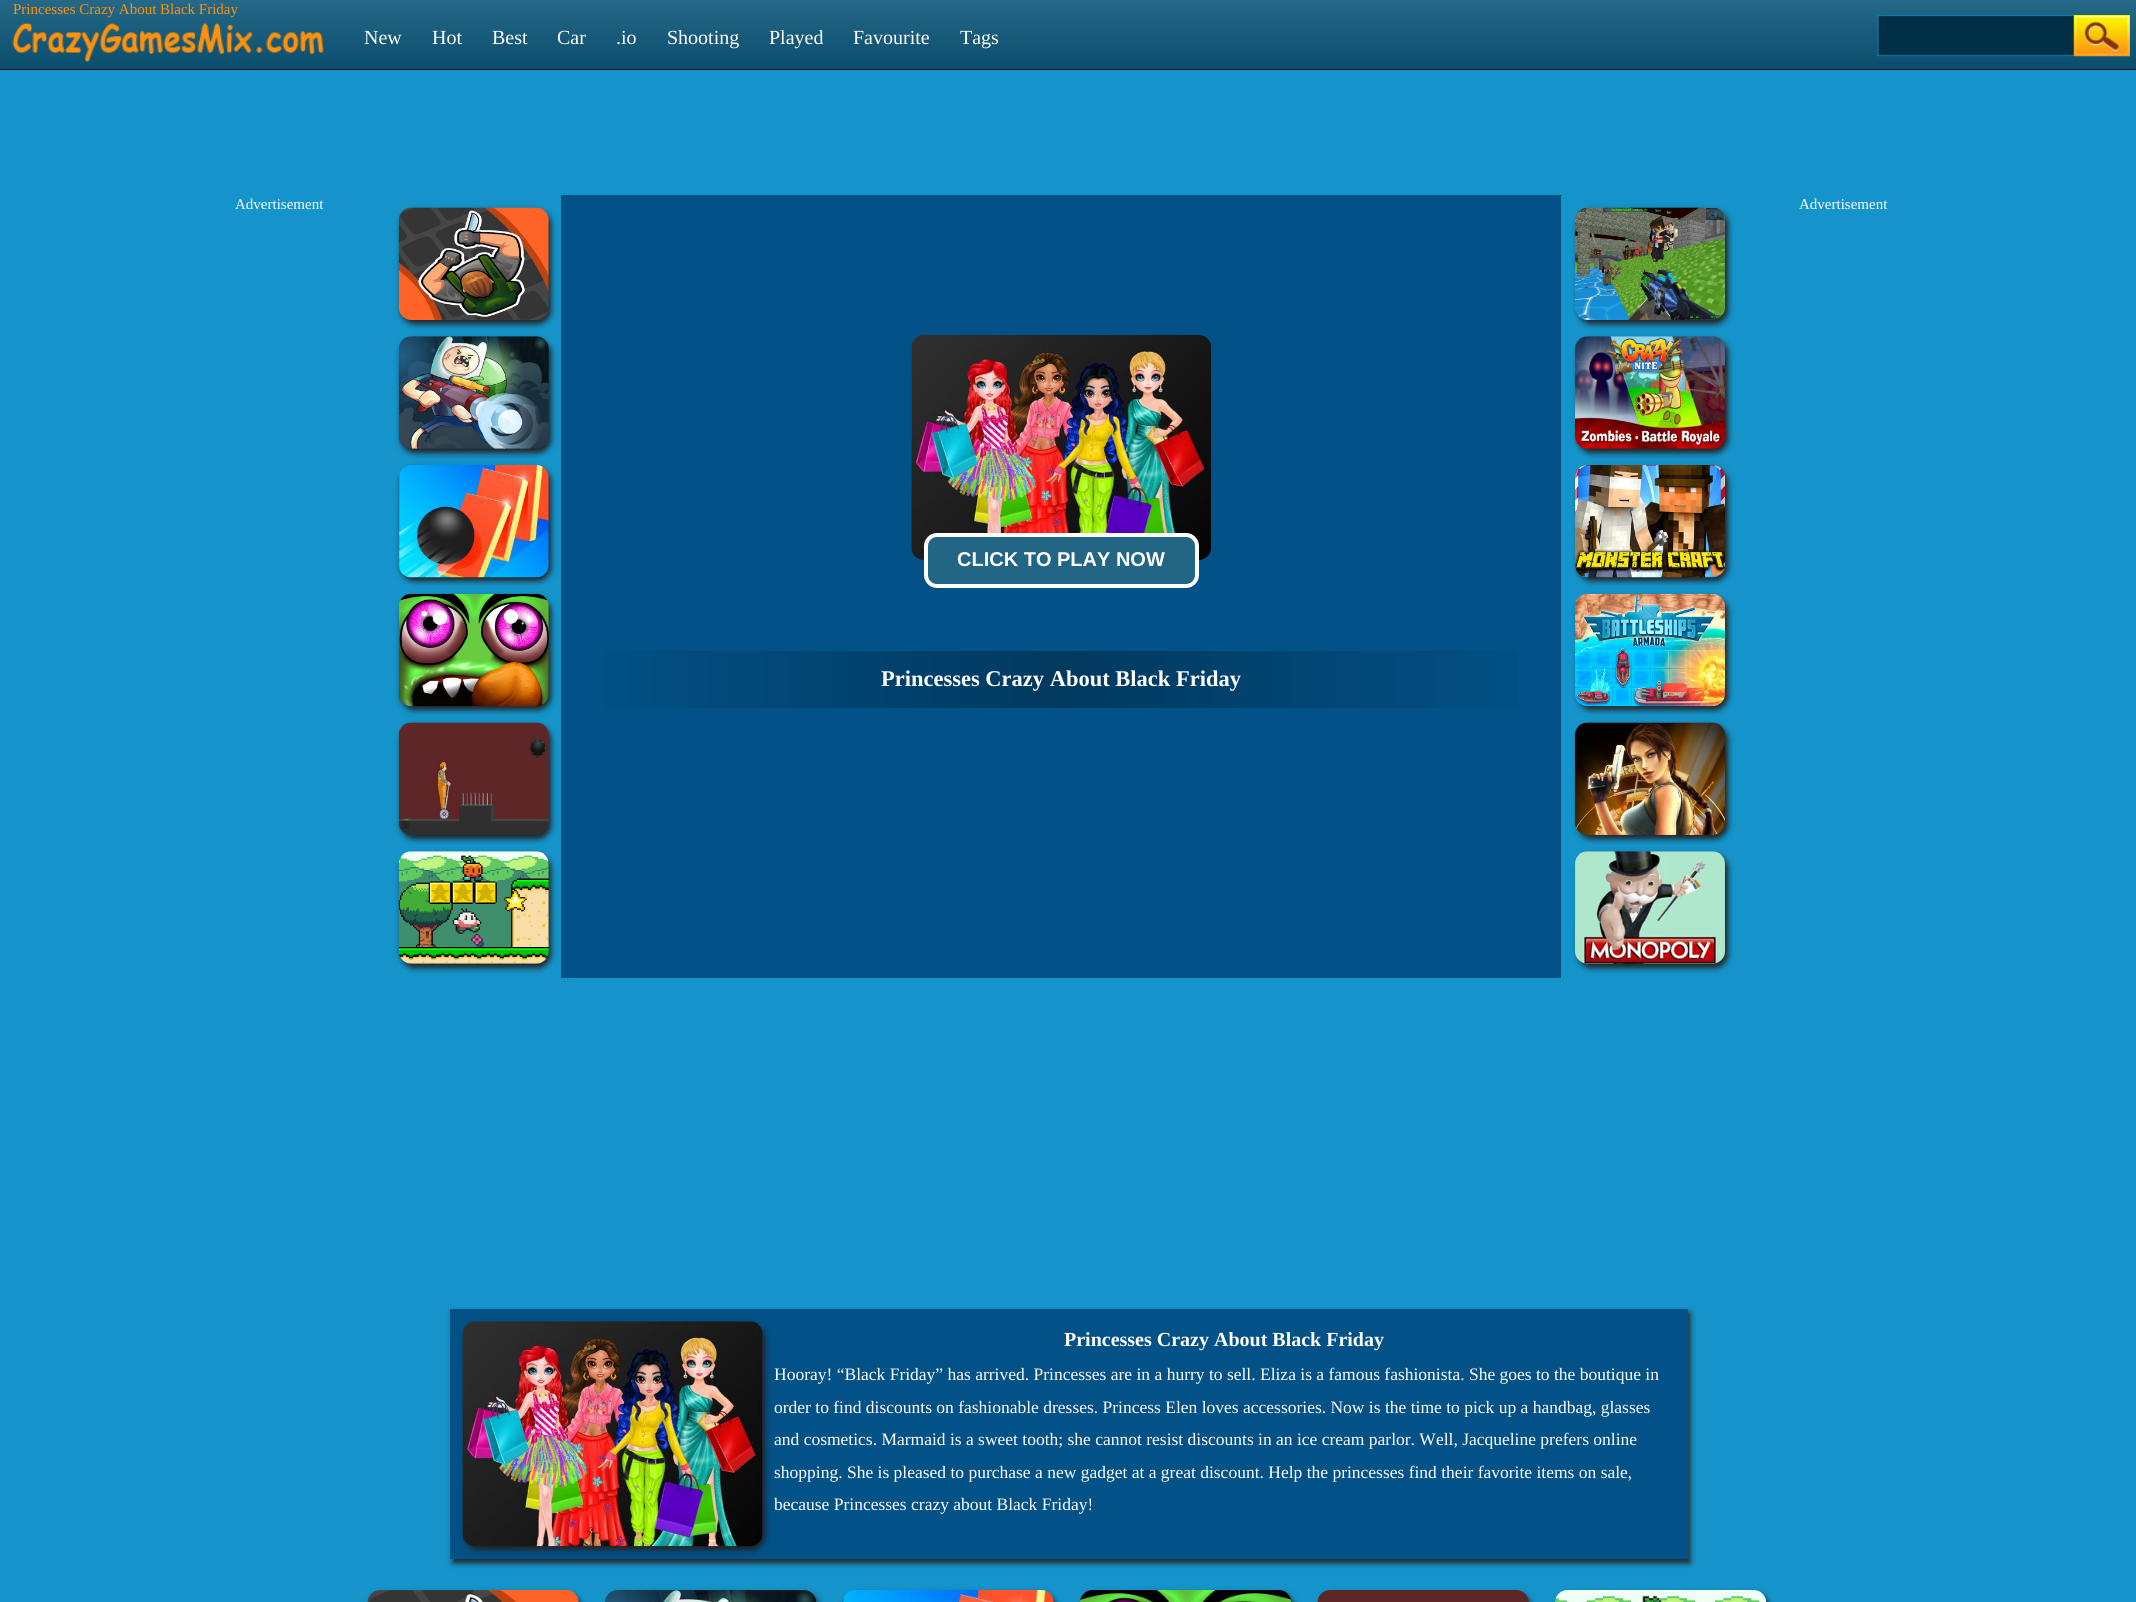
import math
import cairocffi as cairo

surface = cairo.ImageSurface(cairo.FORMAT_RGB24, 2136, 1602)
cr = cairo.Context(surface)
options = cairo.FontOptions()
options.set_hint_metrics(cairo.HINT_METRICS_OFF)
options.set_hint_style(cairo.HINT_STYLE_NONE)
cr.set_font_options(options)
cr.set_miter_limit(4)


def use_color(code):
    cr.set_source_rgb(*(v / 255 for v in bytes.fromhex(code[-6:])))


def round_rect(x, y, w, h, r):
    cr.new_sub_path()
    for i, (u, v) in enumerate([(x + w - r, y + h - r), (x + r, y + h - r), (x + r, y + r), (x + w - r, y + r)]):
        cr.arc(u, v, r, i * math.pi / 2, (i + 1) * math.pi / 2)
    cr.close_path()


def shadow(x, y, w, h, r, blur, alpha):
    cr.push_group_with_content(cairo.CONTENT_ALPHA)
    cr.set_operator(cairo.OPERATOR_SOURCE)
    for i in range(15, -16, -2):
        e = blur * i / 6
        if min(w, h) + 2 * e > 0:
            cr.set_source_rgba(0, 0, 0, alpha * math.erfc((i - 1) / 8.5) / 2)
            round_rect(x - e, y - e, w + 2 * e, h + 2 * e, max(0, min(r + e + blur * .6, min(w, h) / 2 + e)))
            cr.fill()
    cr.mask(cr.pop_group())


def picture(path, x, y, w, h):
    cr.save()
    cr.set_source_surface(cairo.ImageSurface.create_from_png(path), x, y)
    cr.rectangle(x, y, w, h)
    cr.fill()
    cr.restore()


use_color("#1494ca")
cr.paint()
gradient = cairo.LinearGradient(1068, 0, 1068, 69)
gradient.add_color_stop_rgba(0, 0.149, 0.408, 0.529, 1)
gradient.add_color_stop_rgba(1, 0.039, 0.302, 0.424, 1)
cr.set_source(gradient)
cr.rectangle(0, 0, 2136, 69)
cr.fill()
use_color("#111111")
cr.rectangle(0, 69, 2136, 1)
cr.fill()
cr.select_font_face("Liberation Serif")
cr.set_font_size(15)
use_color("#fe920c")
cr.move_to(13, 14)
cr.show_text("Princesses Crazy About Black Friday")
picture("img1.png", 12, 23, 312, 39)
cr.set_font_size(20)
use_color("#ffffff")
cr.move_to(364, 44)
cr.show_text("New")
cr.move_to(432, 44)
cr.show_text("Hot")
cr.move_to(492, 44)
cr.show_text("Best")
cr.move_to(557, 44)
cr.show_text("Car")
cr.move_to(616, 44)
cr.show_text(".io")
cr.move_to(667, 44)
cr.show_text("Shooting")
cr.move_to(769, 44)
cr.show_text("Played")
cr.move_to(853, 44)
cr.show_text("Favourite")
cr.move_to(960, 44)
cr.show_text("Tags")
picture("img2.png", 1877, 15, 253, 42)
use_color("#025187")
cr.rectangle(1561, 195, 1, 1)
cr.fill()
cr.set_font_size(15)
use_color("#ffffff")
cr.move_to(235, 209)
cr.show_text("Advertisement")
use_color("#222222")
shadow(401, 211, 150, 113, 13, 3, 1)
picture("img3.png", 398, 207, 151, 113)
shadow(401, 340, 150, 113, 13, 3, 1)
picture("img4.png", 398, 336, 151, 113)
shadow(401, 469, 150, 112, 13, 3, 1)
picture("img5.png", 399, 465, 150, 113)
shadow(401, 598, 150, 112, 13, 3, 1)
picture("img6.png", 398, 593, 151, 114)
shadow(401, 726, 150, 113, 13, 3, 1)
picture("img7.png", 398, 722, 151, 113)
shadow(401, 855, 150, 113, 13, 3, 1)
picture("img8.png", 398, 851, 151, 113)
use_color("#025187")
cr.rectangle(561, 195, 1000, 783)
cr.fill()
picture("img9.png", 911, 335, 301, 225)
use_color("#236584")
round_rect(926, 535, 271, 51, 11)
cr.fill_preserve()
use_color("#ffffff")
cr.set_line_width(4)
cr.stroke()
cr.select_font_face("Liberation Sans", cairo.FONT_SLANT_NORMAL, cairo.FONT_WEIGHT_BOLD)
cr.set_font_size(20)
cr.move_to(957, 566)
cr.show_text("CLICK TO PLAY NOW")
gradient = cairo.LinearGradient(574, 679, 1549, 679)
gradient.add_color_stop_rgba(0, 0.008, 0.318, 0.529, 1)
gradient.add_color_stop_rgba(0.5, 0.004, 0.224, 0.373, 1)
gradient.add_color_stop_rgba(1, 0.008, 0.318, 0.529, 1)
cr.set_source(gradient)
cr.rectangle(604, 651, 915, 57)
cr.fill()
cr.select_font_face("Liberation Serif", cairo.FONT_SLANT_NORMAL, cairo.FONT_WEIGHT_BOLD)
cr.set_font_size(22.5)
use_color("#ffffff")
cr.move_to(881, 686)
cr.show_text("Princesses Crazy About Black Friday")
use_color("#222222")
shadow(1578, 211, 150, 113, 13, 3, 1)
picture("img10.png", 1575, 207, 150, 113)
shadow(1578, 340, 150, 113, 13, 3, 1)
picture("img11.png", 1575, 336, 150, 113)
shadow(1578, 469, 150, 112, 13, 3, 1)
picture("img12.png", 1575, 465, 150, 113)
shadow(1578, 598, 150, 112, 13, 3, 1)
picture("img13.png", 1575, 593, 150, 114)
shadow(1578, 726, 150, 113, 13, 3, 1)
picture("img14.png", 1575, 722, 150, 113)
shadow(1578, 855, 150, 113, 13, 3, 1)
picture("img15.png", 1575, 851, 150, 113)
cr.select_font_face("Liberation Serif")
cr.set_font_size(15)
use_color("#ffffff")
cr.move_to(1799, 209)
cr.show_text("Advertisement")
use_color("#222222")
shadow(453, 1313, 1237, 250, 0, 3, 1)
use_color("#025187")
cr.rectangle(450, 1309, 1238, 250)
cr.fill()
use_color("#222222")
shadow(465, 1325, 300, 225, 13, 3, 1)
picture("img16.png", 462, 1321, 301, 226)
cr.select_font_face("Liberation Serif", cairo.FONT_SLANT_NORMAL, cairo.FONT_WEIGHT_BOLD)
cr.set_font_size(20)
use_color("#ffffff")
cr.move_to(1064, 1346)
cr.show_text("Princesses Crazy About Black Friday")
cr.select_font_face("Liberation Serif")
cr.set_font_size(17.5)
cr.move_to(774, 1380)
cr.show_text("Hooray! “Black Friday” has arrived. Princesses are in a hurry to sell. Eliza is a famous fashionista. She goes to the boutique in")
cr.move_to(774, 1413)
cr.show_text("order to find discounts on fashionable dresses. Princess Elen loves accessories. Now is the time to pick up a handbag, glasses")
cr.move_to(774, 1445)
cr.show_text("and cosmetics. Marmaid is a sweet tooth; she cannot resist discounts in an ice cream parlor. Well, Jacqueline prefers online")
cr.move_to(774, 1478)
cr.show_text("shopping. She is pleased to purchase a new gadget at a great discount. Help the princesses find their favorite items on sale,")
cr.move_to(774, 1510)
cr.show_text("because Princesses crazy about Black Friday!")
use_color("#222222")
shadow(370, 1594, 211, 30, 13, 3, 1)
picture("img17.png", 367, 1590, 212, 12)
shadow(608, 1594, 211, 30, 13, 3, 1)
picture("img18.png", 605, 1590, 211, 12)
shadow(845, 1594, 211, 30, 13, 3, 1)
picture("img19.png", 842, 1590, 212, 12)
shadow(1083, 1594, 211, 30, 13, 3, 1)
picture("img20.png", 1080, 1590, 211, 12)
shadow(1320, 1594, 211, 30, 13, 3, 1)
picture("img21.png", 1317, 1590, 212, 12)
shadow(1558, 1594, 211, 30, 13, 3, 1)
picture("img22.png", 1555, 1590, 212, 12)
surface.write_to_png("result.png")
